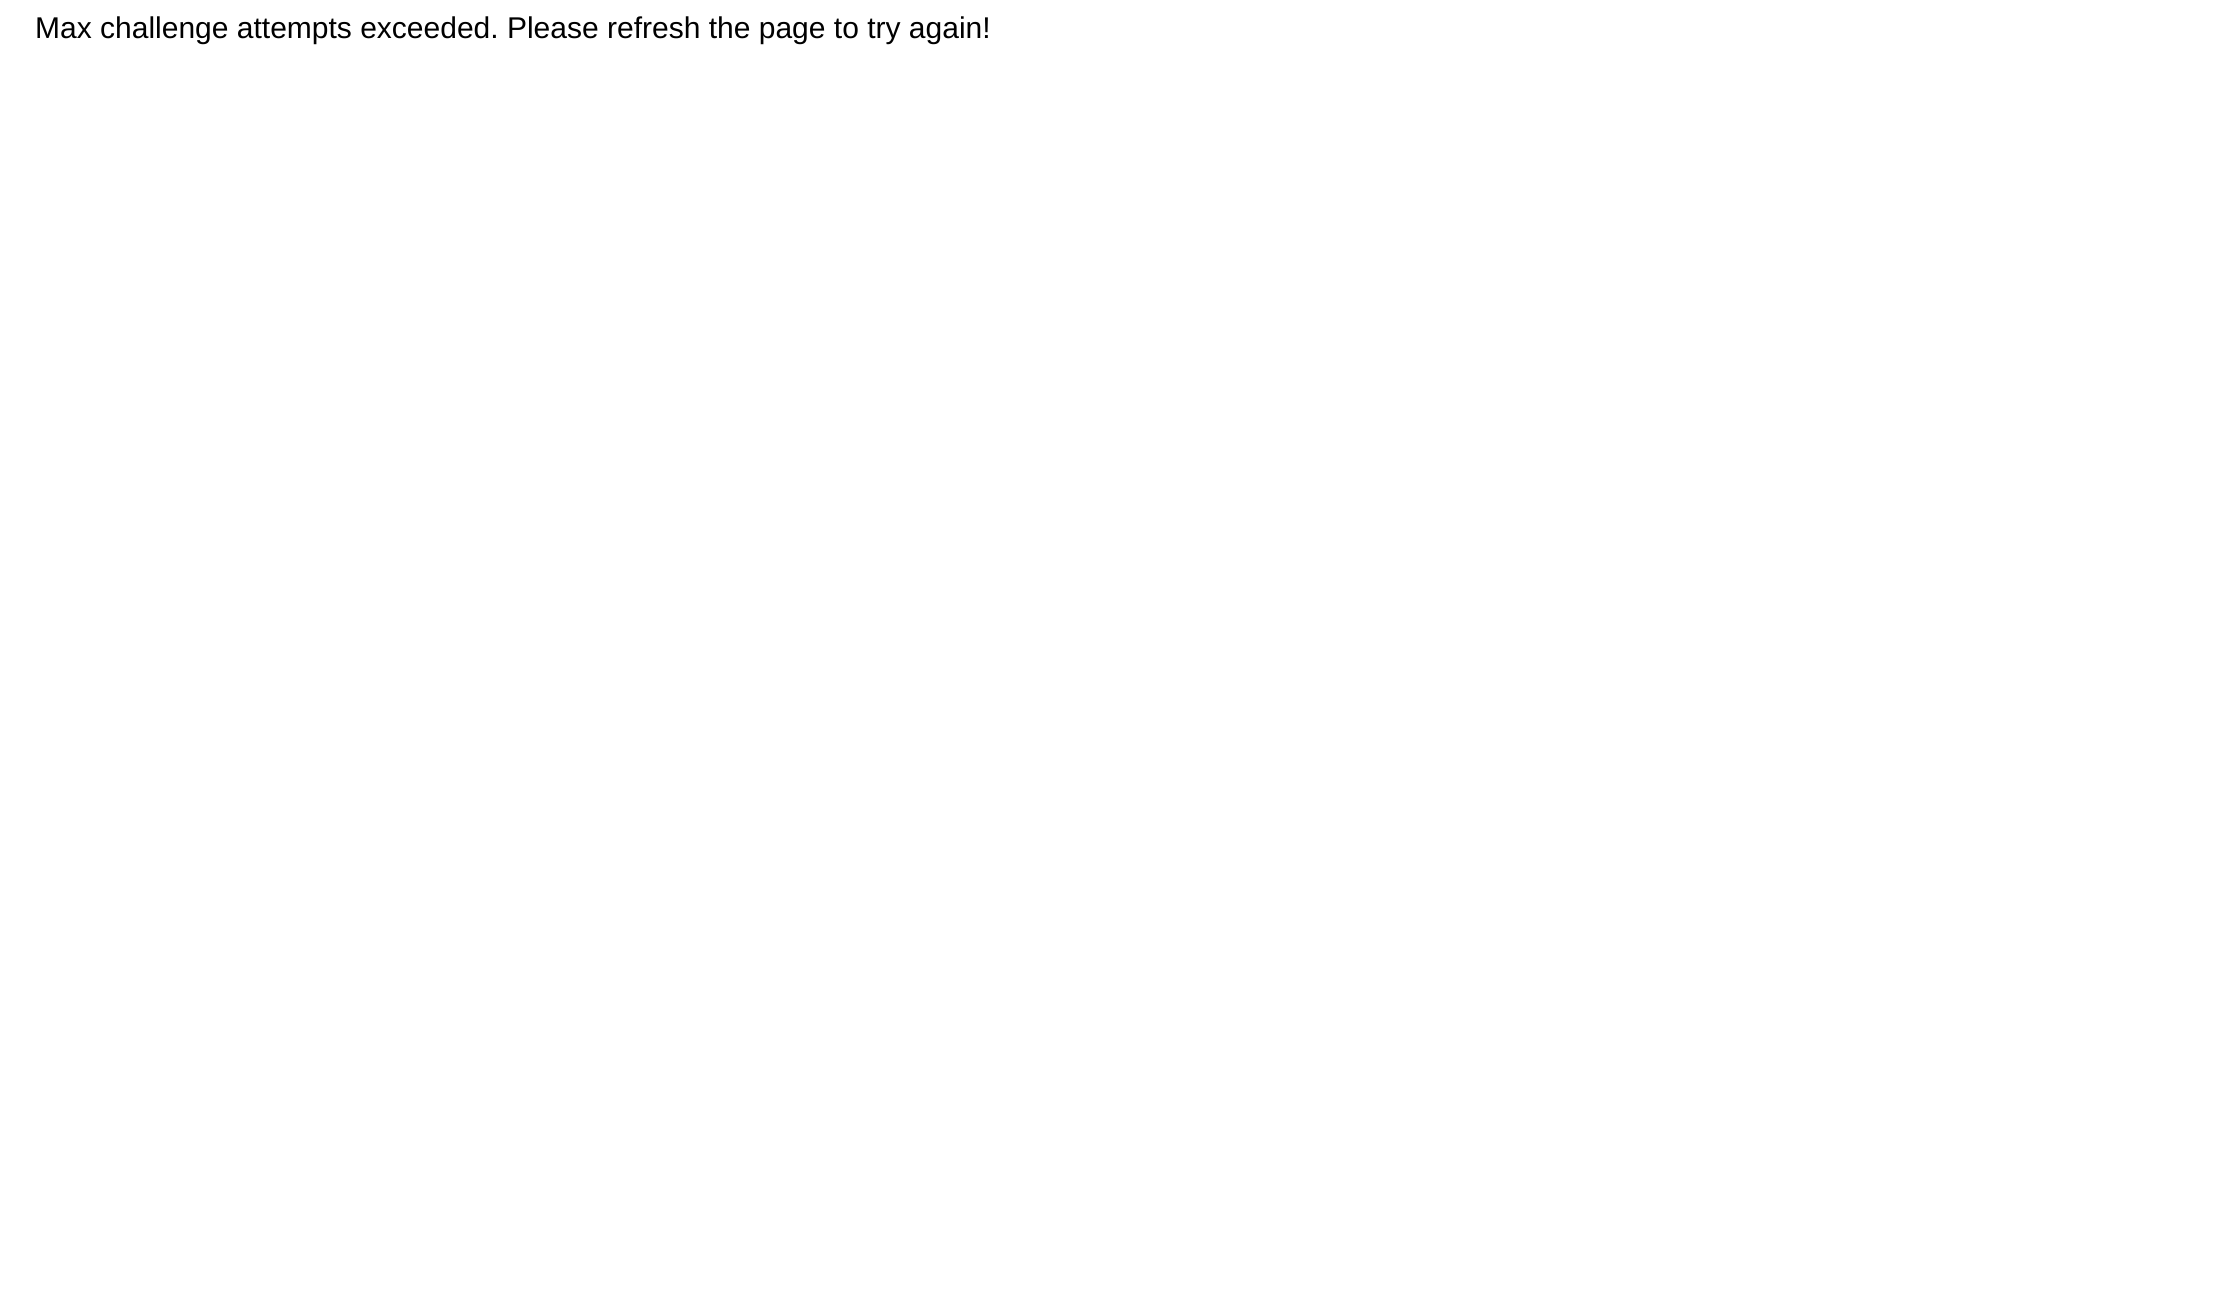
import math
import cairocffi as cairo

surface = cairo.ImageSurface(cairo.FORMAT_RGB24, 2226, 1299)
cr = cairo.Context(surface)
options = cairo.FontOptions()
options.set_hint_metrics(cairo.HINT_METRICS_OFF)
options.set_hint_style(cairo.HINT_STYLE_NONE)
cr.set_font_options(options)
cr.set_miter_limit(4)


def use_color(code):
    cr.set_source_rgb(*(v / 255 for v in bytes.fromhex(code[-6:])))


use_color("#ffffff")
cr.paint()
cr.select_font_face("Liberation Sans")
cr.set_font_size(30)
use_color("#000000")
cr.move_to(35, 38)
cr.show_text("Max challenge attempts exceeded. Please refresh the page to try again!")
surface.write_to_png("result.png")
